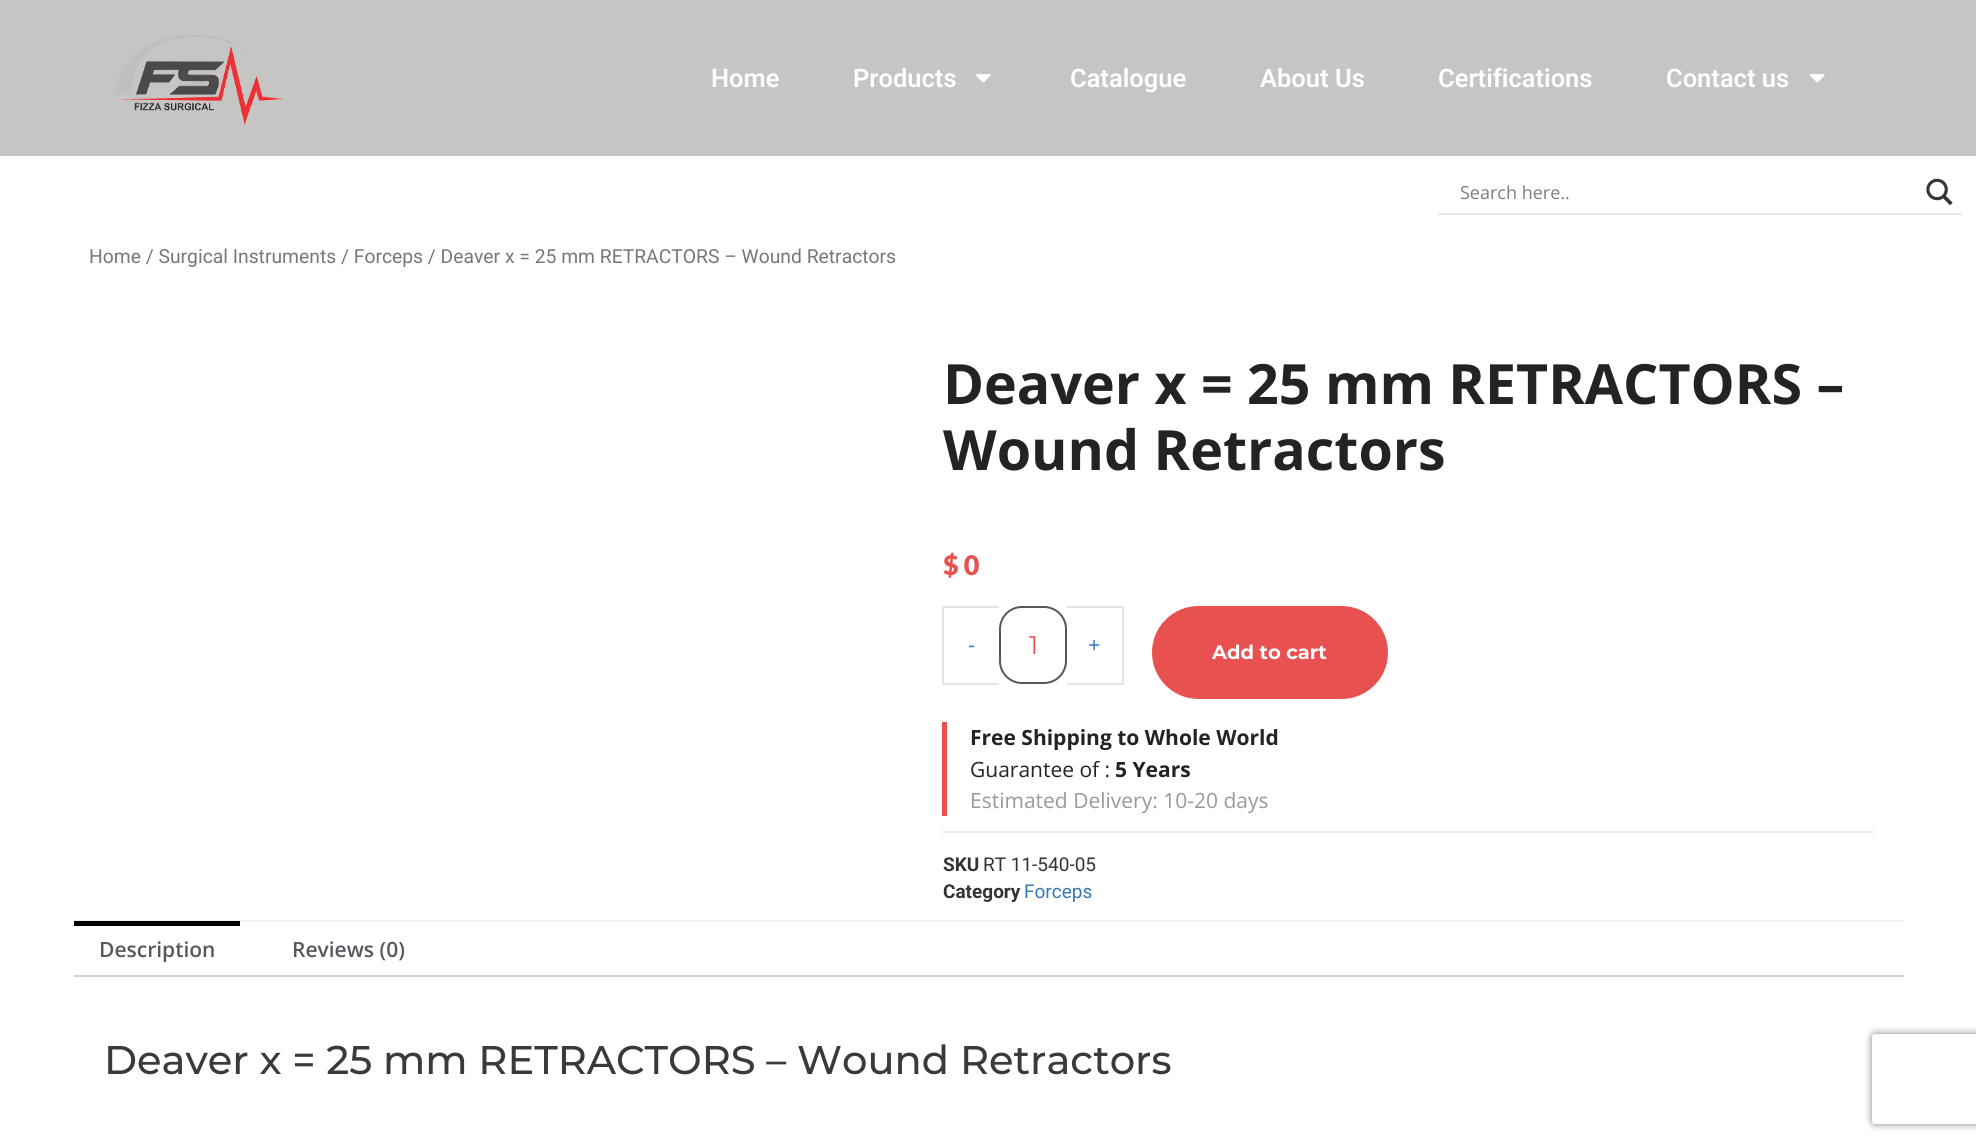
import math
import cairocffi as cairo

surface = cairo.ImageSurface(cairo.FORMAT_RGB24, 1976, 1144)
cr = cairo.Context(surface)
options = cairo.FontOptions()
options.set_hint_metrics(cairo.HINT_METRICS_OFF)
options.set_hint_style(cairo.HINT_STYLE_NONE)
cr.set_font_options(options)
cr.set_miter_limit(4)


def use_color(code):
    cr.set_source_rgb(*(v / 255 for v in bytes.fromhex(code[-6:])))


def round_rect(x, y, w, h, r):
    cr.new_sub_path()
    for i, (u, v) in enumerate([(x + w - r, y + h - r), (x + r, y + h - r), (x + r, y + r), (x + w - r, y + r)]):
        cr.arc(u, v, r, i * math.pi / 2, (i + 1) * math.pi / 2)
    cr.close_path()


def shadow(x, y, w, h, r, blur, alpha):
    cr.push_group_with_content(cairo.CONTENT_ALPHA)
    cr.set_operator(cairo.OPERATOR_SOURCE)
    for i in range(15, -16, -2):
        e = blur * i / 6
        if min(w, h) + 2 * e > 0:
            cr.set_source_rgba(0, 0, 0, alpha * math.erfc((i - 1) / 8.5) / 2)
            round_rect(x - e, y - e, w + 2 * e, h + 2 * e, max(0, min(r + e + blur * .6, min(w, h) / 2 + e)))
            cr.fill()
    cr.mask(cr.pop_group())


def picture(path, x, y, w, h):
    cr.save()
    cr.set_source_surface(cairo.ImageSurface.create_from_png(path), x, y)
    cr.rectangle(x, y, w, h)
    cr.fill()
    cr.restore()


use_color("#ffffff")
cr.paint()
use_color("#c5c6c3")
cr.rectangle(0, 0, 1976, 156)
cr.fill()
picture("img1.png", 115, 34, 169, 91)
cr.select_font_face("Roboto SemiBold")
cr.set_font_size(25.5)
use_color("#ffffff")
cr.move_to(711, 87)
cr.show_text("Home")
cr.move_to(853, 87)
cr.show_text("Products")
picture("img2.png", 976, 74, 15, 9)
cr.move_to(1070, 87)
cr.show_text("Catalogue")
cr.move_to(1260, 87)
cr.show_text("About Us")
cr.move_to(1438, 87)
cr.show_text("Certifications")
cr.move_to(1666, 87)
cr.show_text("Contact us")
picture("img2.png", 1810, 74, 15, 9)
use_color("#e4e4e4")
cr.new_path()
cr.move_to(1439, 213)
cr.line_to(1439, 215)
cr.line_to(1961, 215)
cr.line_to(1961, 173)
cr.line_to(1960, 173)
cr.line_to(1960, 213)
cr.close_path()
cr.fill()
use_color("#ffffff")
cr.rectangle(1960, 173, 1, 40)
cr.fill()
cr.select_font_face("Open Sans")
cr.set_font_size(18)
use_color("#7d7d7d")
cr.move_to(1460, 199)
cr.show_text("Search here..")
picture("img3.png", 1926, 178, 27, 28)
cr.select_font_face("Roboto")
cr.set_font_size(19.3)
use_color("#777777")
cr.move_to(89, 263)
cr.show_text("Home / Surgical Instruments / Forceps / Deaver x = 25 mm RETRACTORS – Wound Retractors")
cr.select_font_face("Open Sans", cairo.FONT_SLANT_NORMAL, cairo.FONT_WEIGHT_BOLD)
cr.set_font_size(55.5)
use_color("#232323")
cr.move_to(943, 404)
cr.show_text("Deaver x = 25 mm RETRACTORS –")
cr.move_to(943, 470)
cr.show_text("Wound Retractors")
cr.select_font_face("Lato Black")
cr.set_font_size(27)
use_color("#e95151")
cr.move_to(943, 575)
cr.show_text("$ 0")
use_color("#e4e4e4")
cr.rectangle(942, 606, 57, 2)
cr.fill()
cr.rectangle(942, 683, 57, 2)
cr.fill()
cr.rectangle(942, 606, 2, 78)
cr.fill()
cr.select_font_face("Liberation Sans")
cr.set_font_size(21)
use_color("#337ab7")
cr.move_to(968, 652)
cr.show_text("-")
round_rect(1000, 607, 66, 76, 22)
use_color("#54595f")
cr.stroke()
cr.select_font_face("Montserrat")
cr.set_font_size(25.5)
use_color("#e95151")
cr.move_to(1029, 654)
cr.show_text("1")
use_color("#e4e4e4")
cr.rectangle(1067, 606, 57, 2)
cr.fill()
cr.rectangle(1122, 606, 2, 78)
cr.fill()
cr.rectangle(1067, 683, 57, 2)
cr.fill()
cr.select_font_face("Liberation Sans")
cr.set_font_size(21)
use_color("#337ab7")
cr.move_to(1088, 652)
cr.show_text("+")
use_color("#e95151")
round_rect(1152, 606, 236, 93, 46.5)
cr.fill()
cr.select_font_face("Montserrat", cairo.FONT_SLANT_NORMAL, cairo.FONT_WEIGHT_BOLD)
cr.set_font_size(19.5)
use_color("#ffffff")
cr.move_to(1212, 659)
cr.show_text("Add to cart")
use_color("#e95151")
cr.rectangle(942, 722, 5, 94)
cr.fill()
cr.select_font_face("Open Sans", cairo.FONT_SLANT_NORMAL, cairo.FONT_WEIGHT_BOLD)
cr.set_font_size(21)
use_color("#232323")
cr.move_to(970, 745)
cr.show_text("Free Shipping to Whole World")
cr.select_font_face("Open Sans")
cr.move_to(970, 777)
cr.show_text("Guarantee of :")
cr.select_font_face("Open Sans", cairo.FONT_SLANT_NORMAL, cairo.FONT_WEIGHT_BOLD)
cr.move_to(1115, 777)
cr.show_text("5 Years")
cr.select_font_face("Open Sans")
use_color("#999999")
cr.move_to(970, 808)
cr.show_text("Estimated Delivery: 10-20 days")
use_color("#ebebeb")
cr.rectangle(942, 831, 932, 2)
cr.fill()
cr.select_font_face("Roboto", cairo.FONT_SLANT_NORMAL, cairo.FONT_WEIGHT_BOLD)
cr.set_font_size(19)
use_color("#333333")
cr.move_to(943, 871)
cr.show_text("SKU")
cr.select_font_face("Roboto")
cr.move_to(983, 871)
cr.show_text("RT 11-540-05")
cr.select_font_face("Roboto", cairo.FONT_SLANT_NORMAL, cairo.FONT_WEIGHT_BOLD)
cr.move_to(943, 898)
cr.show_text("Category")
cr.select_font_face("Roboto")
use_color("#337ab7")
cr.move_to(1024, 898)
cr.show_text("Forceps")
use_color("#f2f2f2")
cr.rectangle(74, 920, 1830, 2)
cr.fill()
use_color("#000000")
cr.rectangle(74, 921, 166, 5)
cr.fill()
cr.select_font_face("Open Sans SemiBold")
cr.set_font_size(21)
use_color("#54595f")
cr.move_to(99, 957)
cr.show_text("Description")
cr.move_to(292, 957)
cr.show_text("Reviews (0)")
use_color("#d3ced2")
cr.rectangle(74, 975, 1830, 2)
cr.fill()
cr.select_font_face("Montserrat Medium")
cr.set_font_size(40)
use_color("#3a3a3a")
cr.move_to(104, 1074)
cr.show_text("Deaver x = 25 mm RETRACTORS – Wound Retractors")
cr.save()
cr.set_fill_rule(cairo.FILL_RULE_EVEN_ODD)
cr.new_path()
cr.move_to(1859, 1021)
cr.line_to(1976, 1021)
cr.line_to(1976, 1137)
cr.line_to(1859, 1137)
cr.close_path()
cr.move_to(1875, 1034)
cr.line_to(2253, 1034)
cr.curve_to(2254.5, 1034, 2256, 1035.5, 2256, 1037)
cr.line_to(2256, 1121)
cr.curve_to(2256, 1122.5, 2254.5, 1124, 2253, 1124)
cr.line_to(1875, 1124)
cr.curve_to(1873.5, 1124, 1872, 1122.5, 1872, 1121)
cr.line_to(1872, 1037)
cr.curve_to(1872, 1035.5, 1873.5, 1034, 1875, 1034)
cr.close_path()
cr.clip()
use_color("#808080")
shadow(1872, 1034, 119, 90, 3, 4, 1)
cr.restore()
surface.write_to_png("result.png")
